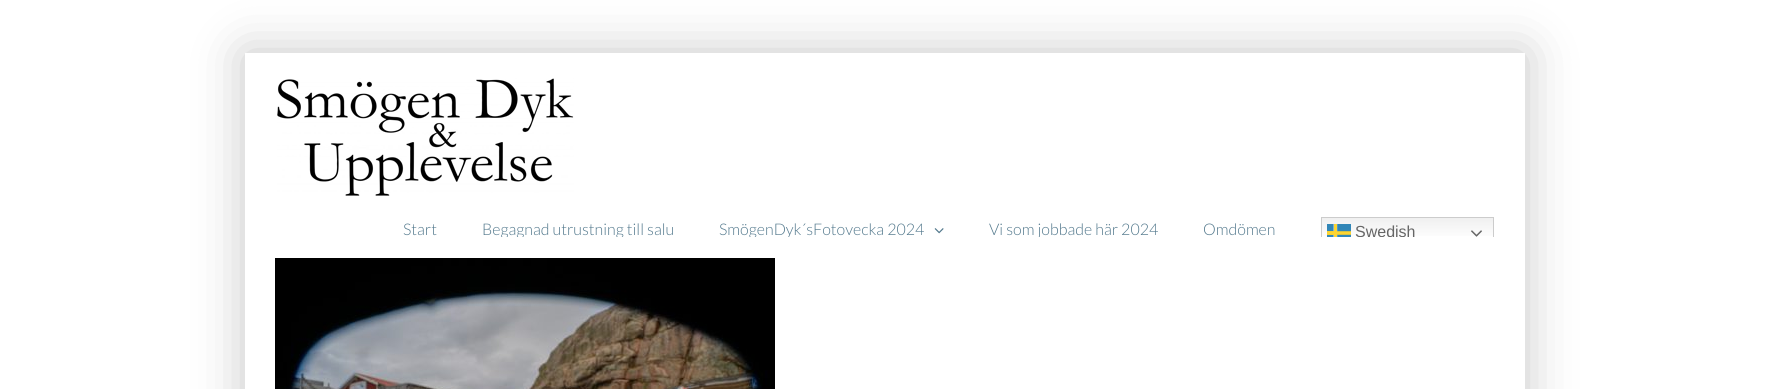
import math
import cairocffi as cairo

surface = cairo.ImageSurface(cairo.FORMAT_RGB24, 1769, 389)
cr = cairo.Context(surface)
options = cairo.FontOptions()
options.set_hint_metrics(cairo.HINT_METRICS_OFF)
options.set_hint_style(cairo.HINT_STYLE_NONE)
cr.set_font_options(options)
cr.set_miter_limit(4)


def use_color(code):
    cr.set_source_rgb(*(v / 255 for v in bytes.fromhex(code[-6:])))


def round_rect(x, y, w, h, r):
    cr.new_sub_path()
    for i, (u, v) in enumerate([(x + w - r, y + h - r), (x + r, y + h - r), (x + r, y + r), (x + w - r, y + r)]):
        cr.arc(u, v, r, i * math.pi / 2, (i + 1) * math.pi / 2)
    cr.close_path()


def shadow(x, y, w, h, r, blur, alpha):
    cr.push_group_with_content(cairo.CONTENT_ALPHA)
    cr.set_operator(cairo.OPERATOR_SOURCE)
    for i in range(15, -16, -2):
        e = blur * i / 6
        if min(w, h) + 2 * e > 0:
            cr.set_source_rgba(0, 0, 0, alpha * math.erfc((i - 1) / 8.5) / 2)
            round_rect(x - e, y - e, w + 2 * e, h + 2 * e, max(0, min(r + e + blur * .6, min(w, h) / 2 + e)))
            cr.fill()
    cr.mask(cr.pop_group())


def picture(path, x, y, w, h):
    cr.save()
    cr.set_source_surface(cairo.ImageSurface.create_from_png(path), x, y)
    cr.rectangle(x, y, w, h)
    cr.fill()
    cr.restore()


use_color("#ffffff")
cr.paint()
cr.save()
cr.set_fill_rule(cairo.FILL_RULE_EVEN_ODD)
cr.new_path()
cr.move_to(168, 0)
cr.line_to(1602, 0)
cr.line_to(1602, 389)
cr.line_to(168, 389)
cr.close_path()
cr.move_to(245, 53)
cr.line_to(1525, 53)
cr.line_to(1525, 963)
cr.line_to(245, 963)
cr.close_path()
cr.clip()
use_color("#000000")
shadow(244, 52, 1282, 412, 0, 25, 0.22)
cr.restore()
picture("img1.png", 277, 78, 297, 118)
cr.select_font_face("Lato Light")
cr.set_font_size(16)
use_color("#52788c")
cr.move_to(403, 235)
cr.show_text("Start")
cr.save()
cr.rectangle(275, 217, 1220, 20)
cr.clip()
cr.move_to(482, 235)
cr.show_text("Begagnad utrustning till salu")
cr.restore()
cr.save()
cr.rectangle(719, 217, 270, 20)
cr.clip()
cr.move_to(719, 235)
cr.show_text("SmögenDyk´sFotovecka 2024")
cr.restore()
picture("img2.png", 934, 228, 10, 6)
cr.save()
cr.rectangle(275, 217, 1220, 20)
cr.clip()
cr.move_to(989, 235)
cr.show_text("Vi som jobbade här 2024")
cr.restore()
cr.move_to(1203, 235)
cr.show_text("Omdömen")
gradient = cairo.LinearGradient(1408, 217, 1408, 249)
gradient.add_color_stop_rgba(0, 0.937, 0.937, 0.937, 1)
gradient.add_color_stop_rgba(0.7, 1, 1, 1, 1)
cr.set_source(gradient)
cr.rectangle(1322, 218, 171, 18)
cr.fill()
cr.save()
cr.rectangle(1321, 217, 173, 20)
cr.clip()
cr.rectangle(1321.5, 217.5, 172, 31)
use_color("#cccccc")
cr.set_line_width(1)
cr.stroke()
cr.restore()
picture("img3.png", 1327, 224, 24, 13)
cr.save()
cr.rectangle(1321, 217, 173, 20)
cr.clip()
cr.select_font_face("Liberation Sans")
use_color("#666666")
cr.move_to(1355, 237)
cr.show_text("Swedish")
cr.restore()
picture("img4.png", 1471, 230, 11, 7)
picture("img5.png", 275, 258, 500, 131)
surface.write_to_png("result.png")
